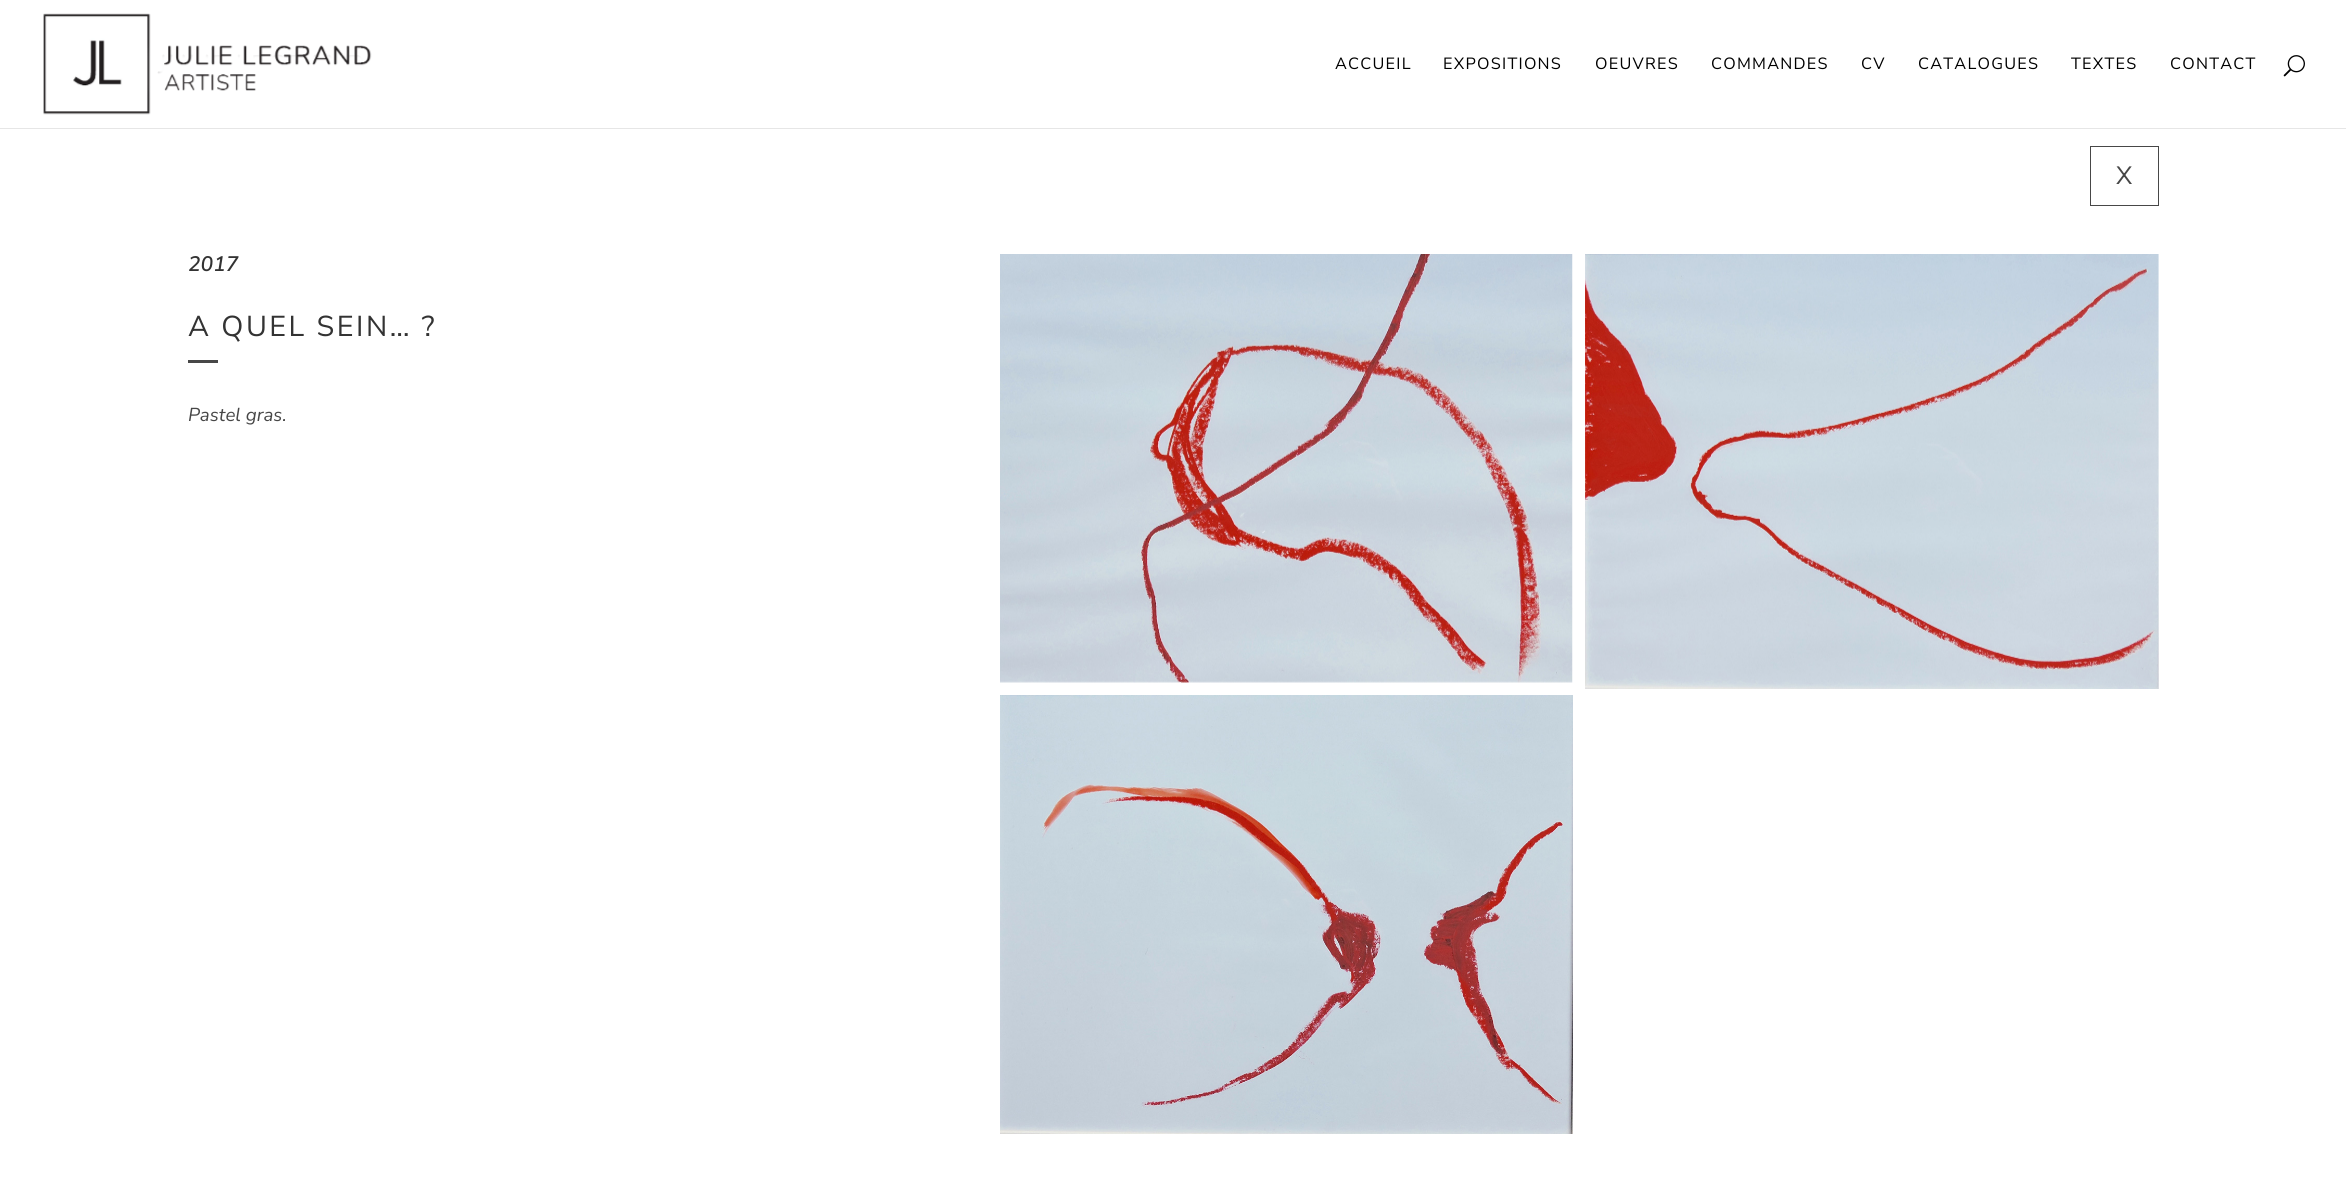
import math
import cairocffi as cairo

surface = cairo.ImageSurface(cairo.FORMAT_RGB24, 2346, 1194)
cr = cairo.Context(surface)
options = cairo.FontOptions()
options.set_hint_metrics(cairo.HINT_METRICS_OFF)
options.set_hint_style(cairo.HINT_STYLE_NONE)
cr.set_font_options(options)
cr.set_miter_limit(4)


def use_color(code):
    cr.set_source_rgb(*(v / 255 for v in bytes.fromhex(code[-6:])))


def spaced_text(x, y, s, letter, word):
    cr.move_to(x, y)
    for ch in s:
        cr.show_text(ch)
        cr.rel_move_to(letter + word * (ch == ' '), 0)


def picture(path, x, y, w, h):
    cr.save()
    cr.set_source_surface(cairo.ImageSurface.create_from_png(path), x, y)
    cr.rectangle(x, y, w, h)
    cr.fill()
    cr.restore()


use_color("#ffffff")
cr.paint()
use_color("#e6e6e6")
cr.rectangle(0, 128, 2346, 1)
cr.fill()
picture("img1.png", 43, 13, 329, 102)
cr.select_font_face("Nunito Sans")
cr.set_font_size(16.25)
use_color("#000000")
spaced_text(1335, 69, "ACCUEIL", 1.25, 0)
spaced_text(1443, 69, "EXPOSITIONS", 1.25, 0)
spaced_text(1595, 69, "OEUVRES", 1.25, 0)
spaced_text(1711, 69, "COMMANDES", 1.25, 0)
spaced_text(1861, 69, "CV", 1.25, 0)
spaced_text(1918, 69, "CATALOGUES", 1.25, 0)
spaced_text(2071, 69, "TEXTES", 1.25, 0)
spaced_text(2170, 69, "CONTACT", 1.25, 0)
picture("img2.png", 2283, 55, 22, 22)
cr.rectangle(2090.5, 146.5, 68, 59)
use_color("#474747")
cr.set_line_width(1)
cr.stroke()
cr.set_font_size(25)
cr.move_to(2116, 184)
cr.show_text("X")
cr.select_font_face("Nunito Sans SemiBold", cairo.FONT_SLANT_ITALIC)
cr.set_font_size(21)
use_color("#333333")
cr.move_to(188, 271)
cr.show_text("2017")
cr.select_font_face("Nunito Sans")
cr.set_font_size(28.75)
spaced_text(188, 336, "A QUEL SEIN… ?", 2.5, 0)
use_color("#474747")
cr.rectangle(188, 360, 30, 3)
cr.fill()
cr.select_font_face("Nunito Sans", cairo.FONT_SLANT_ITALIC)
cr.set_font_size(18.75)
cr.move_to(188, 421)
cr.show_text("Pastel gras.")
picture("img3.png", 1000, 254, 573, 429)
picture("img4.png", 1585, 254, 574, 435)
picture("img5.png", 1000, 695, 573, 439)
surface.write_to_png("result.png")
